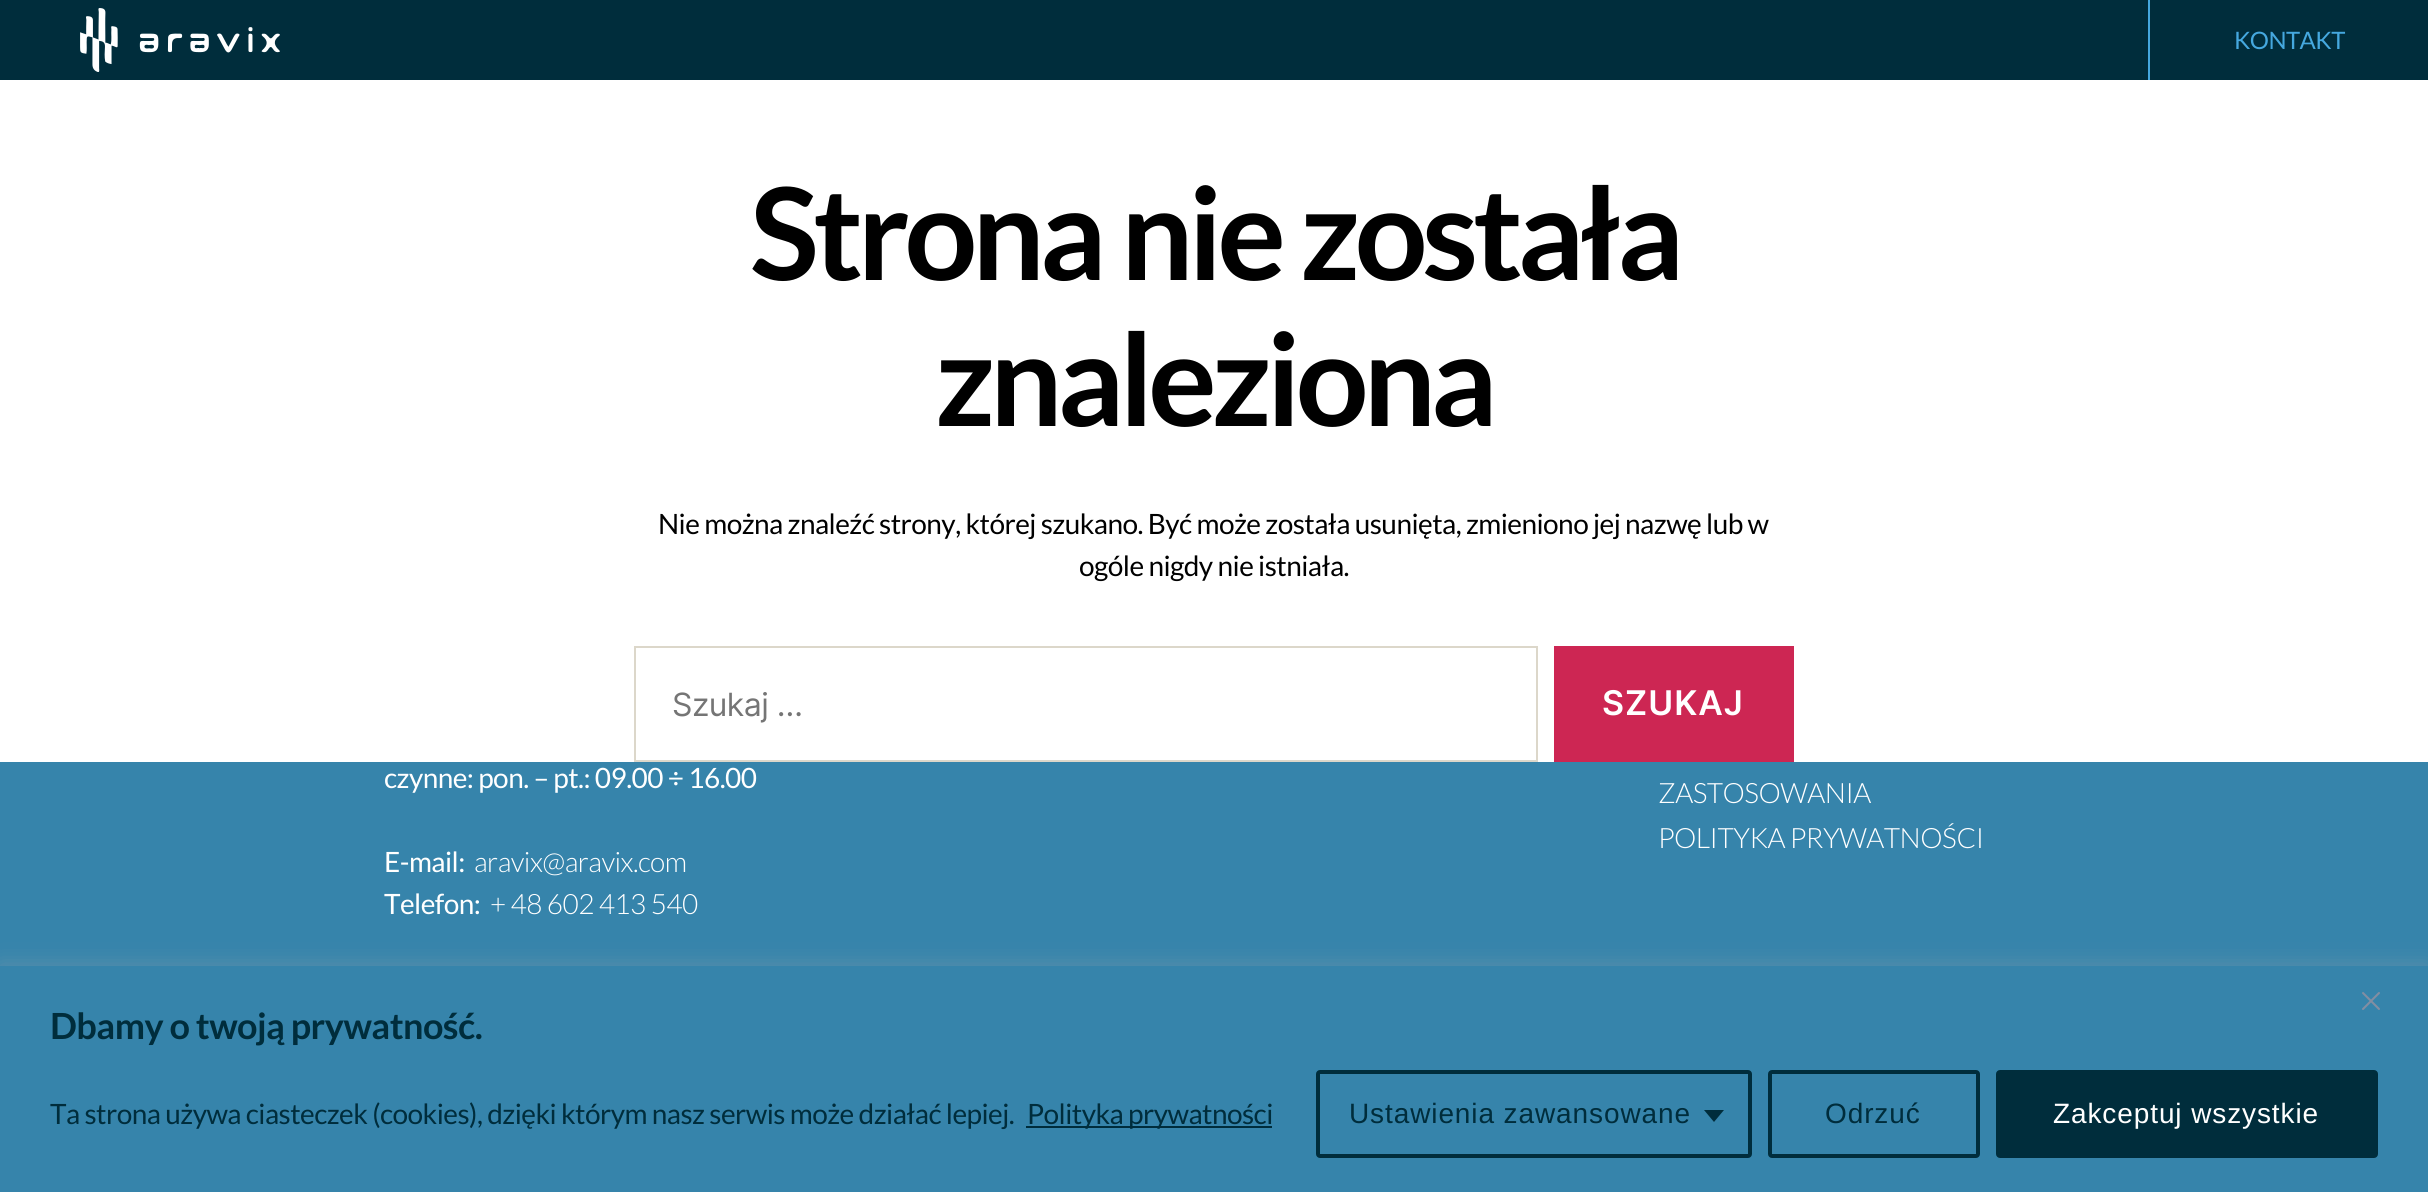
import math
import cairocffi as cairo

surface = cairo.ImageSurface(cairo.FORMAT_RGB24, 2428, 1192)
cr = cairo.Context(surface)
options = cairo.FontOptions()
options.set_hint_metrics(cairo.HINT_METRICS_OFF)
options.set_hint_style(cairo.HINT_STYLE_NONE)
cr.set_font_options(options)
cr.set_miter_limit(4)


def use_color(code):
    cr.set_source_rgb(*(v / 255 for v in bytes.fromhex(code[-6:])))


def spaced_text(x, y, s, letter, word):
    cr.move_to(x, y)
    for ch in s:
        cr.show_text(ch)
        cr.rel_move_to(letter + word * (ch == ' '), 0)


def round_rect(x, y, w, h, r):
    cr.new_sub_path()
    for i, (u, v) in enumerate([(x + w - r, y + h - r), (x + r, y + h - r), (x + r, y + r), (x + w - r, y + r)]):
        cr.arc(u, v, r, i * math.pi / 2, (i + 1) * math.pi / 2)
    cr.close_path()


def shadow(x, y, w, h, r, blur, alpha):
    cr.push_group_with_content(cairo.CONTENT_ALPHA)
    cr.set_operator(cairo.OPERATOR_SOURCE)
    for i in range(15, -16, -2):
        e = blur * i / 6
        if min(w, h) + 2 * e > 0:
            cr.set_source_rgba(0, 0, 0, alpha * math.erfc((i - 1) / 8.5) / 2)
            round_rect(x - e, y - e, w + 2 * e, h + 2 * e, max(0, min(r + e + blur * .6, min(w, h) / 2 + e)))
            cr.fill()
    cr.mask(cr.pop_group())


def picture(path, x, y, w, h):
    cr.save()
    cr.set_source_surface(cairo.ImageSurface.create_from_png(path), x, y)
    cr.rectangle(x, y, w, h)
    cr.fill()
    cr.restore()


use_color("#3684ab")
cr.paint()
use_color("#002d3c")
cr.rectangle(0, 0, 2428, 80)
cr.fill()
picture("img1.png", 80, 8, 200, 64)
use_color("#45a8df")
cr.rectangle(2148, 0, 2, 80)
cr.fill()
cr.select_font_face("Lato")
cr.set_font_size(24)
spaced_text(2234, 49, "KONTAKT", -0.55, 0)
use_color("#ffffff")
cr.rectangle(0, 80, 2428, 682)
cr.fill()
cr.select_font_face("Lato", cairo.FONT_SLANT_NORMAL, cairo.FONT_WEIGHT_BOLD)
cr.set_font_size(128)
use_color("#000000")
spaced_text(750, 280, "Strona nie została", -5.3, 0)
spaced_text(935, 426, "znaleziona", -5.3, 0)
cr.select_font_face("Lato")
cr.set_font_size(28)
spaced_text(658, 534, "Nie można znaleźć strony, której szukano. Być może została usunięta, zmieniono jej nazwę lub w", -0.55, 0)
spaced_text(1079, 576, "ogóle nigdy nie istniała.", -0.55, 0)
cr.rectangle(635, 647, 902, 114)
use_color("#dcd7ca")
cr.stroke()
cr.select_font_face("Inter")
cr.set_font_size(32)
use_color("#757575")
spaced_text(672, 716, "Szukaj …", -0.5, 0)
use_color("#cd2653")
cr.rectangle(1554, 646, 240, 116)
cr.fill()
cr.select_font_face("Inter SemiBold")
cr.set_font_size(34)
use_color("#ffffff")
spaced_text(1602, 715, "SZUKAJ", 1, 0)
cr.select_font_face("Lato")
cr.set_font_size(28)
spaced_text(384, 788, "czynne: pon. – pt.: 09.00 ÷ 16.00", -0.55, 0)
spaced_text(384, 872, "E-mail:", -0.55, 0)
cr.select_font_face("Lato Light")
spaced_text(474, 872, "aravix@aravix.com", -0.55, 0)
cr.select_font_face("Lato")
spaced_text(384, 914, "Telefon:", -0.55, 0)
cr.select_font_face("Lato Light")
spaced_text(490, 914, "+ 48 602 413 540", -0.55, 0)
spaced_text(1658, 803, "ZASTOSOWANIA", -0.55, 0)
spaced_text(1658, 848, "POLITYKA PRYWATNOŚCI", -0.55, 0)
use_color("#acabab")
shadow(0, 964, 2428, 226, 0, 10, 0.3)
use_color("#3684ab")
cr.rectangle(0, 966, 2428, 226)
cr.fill()
picture("img2.png", 2362, 992, 18, 18)
cr.select_font_face("Lato", cairo.FONT_SLANT_NORMAL, cairo.FONT_WEIGHT_BOLD)
cr.set_font_size(36)
use_color("#002d3c")
spaced_text(50, 1039, "Dbamy o twoją prywatność.", -0.55, 0)
cr.select_font_face("Lato")
cr.set_font_size(28)
spaced_text(50, 1124, "Ta strona używa ciasteczek (cookies), dzięki którym nasz serwis może działać lepiej.", -0.55, 0)
cr.rectangle(1026, 1126, 246, 2)
cr.fill()
spaced_text(1027, 1124, "Polityka prywatności", -0.55, 0)
round_rect(1318, 1072, 432, 84, 2)
cr.set_line_width(4)
cr.stroke()
cr.select_font_face("Liberation Sans")
spaced_text(1349, 1123, "Ustawienia zawansowane", 0.9, 0)
cr.new_path()
cr.move_to(1704, 1110)
cr.line_to(1724, 1110)
cr.line_to(1714, 1122)
cr.close_path()
cr.fill()
round_rect(1770, 1072, 208, 84, 2)
cr.stroke()
spaced_text(1825, 1123, "Odrzuć", 0.9, 0)
round_rect(1998, 1072, 378, 84, 2)
cr.fill_preserve()
cr.stroke()
use_color("#ffffff")
spaced_text(2053, 1123, "Zakceptuj wszystkie", 0.9, 0)
surface.write_to_png("result.png")
